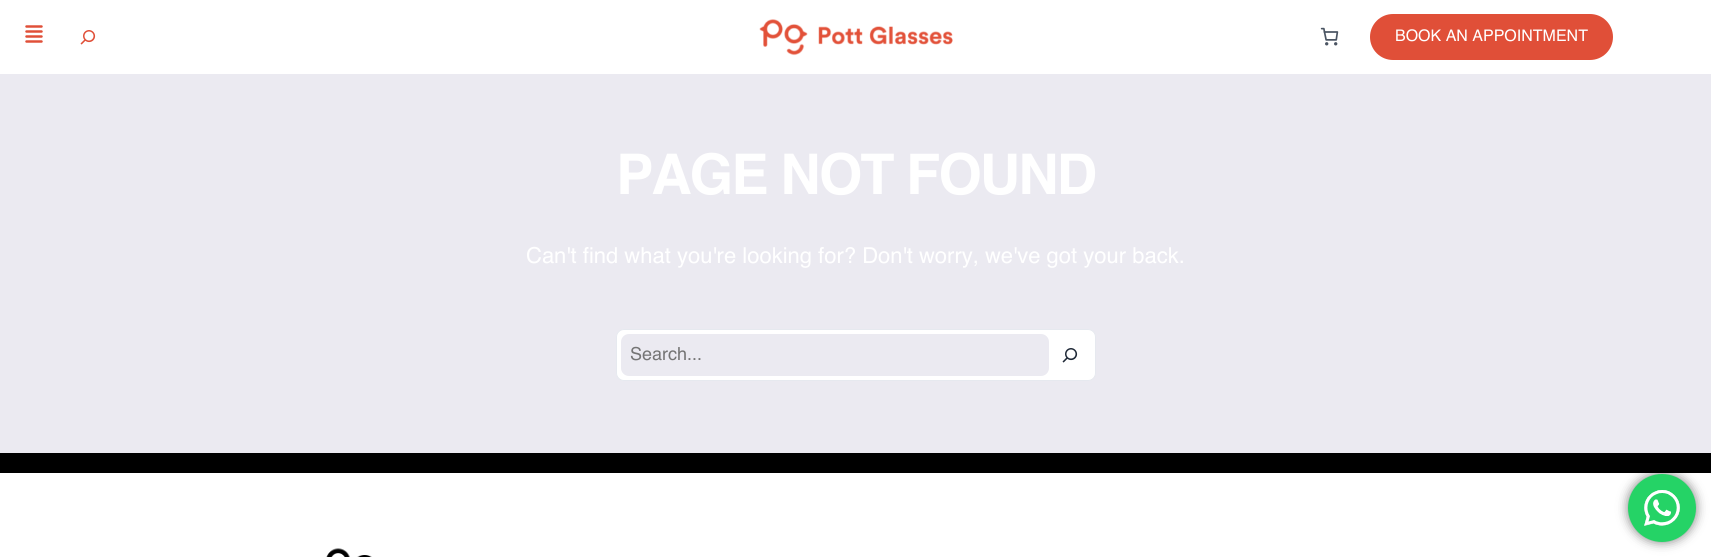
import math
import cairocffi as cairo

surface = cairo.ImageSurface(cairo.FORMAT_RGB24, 1711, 557)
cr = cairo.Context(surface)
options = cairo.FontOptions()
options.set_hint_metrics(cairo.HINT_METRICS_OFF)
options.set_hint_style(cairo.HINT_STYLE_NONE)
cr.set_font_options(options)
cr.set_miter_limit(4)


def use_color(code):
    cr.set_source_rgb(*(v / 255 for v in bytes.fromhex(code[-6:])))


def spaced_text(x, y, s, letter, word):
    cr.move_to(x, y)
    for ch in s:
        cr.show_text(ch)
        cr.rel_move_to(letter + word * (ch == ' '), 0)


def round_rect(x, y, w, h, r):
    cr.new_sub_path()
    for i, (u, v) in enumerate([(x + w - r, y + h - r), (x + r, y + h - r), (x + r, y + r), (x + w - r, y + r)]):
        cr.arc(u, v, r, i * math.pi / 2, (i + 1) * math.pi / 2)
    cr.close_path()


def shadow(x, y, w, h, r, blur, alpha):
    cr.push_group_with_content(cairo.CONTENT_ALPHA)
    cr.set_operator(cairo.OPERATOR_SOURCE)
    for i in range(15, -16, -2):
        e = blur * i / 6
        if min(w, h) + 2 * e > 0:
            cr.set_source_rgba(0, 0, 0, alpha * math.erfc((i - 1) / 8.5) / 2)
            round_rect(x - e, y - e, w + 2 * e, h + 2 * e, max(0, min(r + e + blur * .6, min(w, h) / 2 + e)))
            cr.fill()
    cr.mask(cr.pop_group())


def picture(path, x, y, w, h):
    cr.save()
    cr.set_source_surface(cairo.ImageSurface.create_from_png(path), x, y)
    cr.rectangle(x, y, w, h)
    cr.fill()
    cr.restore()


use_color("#ffffff")
cr.paint()
picture("img1.png", 25, 25, 18, 18)
picture("img2.png", 80, 30, 16, 15)
picture("img3.png", 759, 19, 194, 37)
picture("img4.png", 1320, 27, 19, 19)
use_color("#e04f38")
round_rect(1370, 14, 243, 46, 23)
cr.fill()
cr.select_font_face("Helvetica")
cr.set_font_size(16)
use_color("#ffffff")
cr.move_to(1395, 41)
cr.show_text("BOOK AN APPOINTMENT")
use_color("#ebeaf1")
cr.rectangle(0, 74, 1711, 379)
cr.fill()
cr.select_font_face("Helvetica", cairo.FONT_SLANT_NORMAL, cairo.FONT_WEIGHT_BOLD)
cr.set_font_size(56)
use_color("#ffffff")
spaced_text(616, 194, "PAGE NOT FOUND", -2, 0)
cr.select_font_face("Helvetica")
cr.set_font_size(22)
cr.move_to(526, 263)
cr.show_text("Can't find what you're looking for? Don't worry, we've got your back.")
round_rect(616.5, 329.5, 479, 51, 7.5)
cr.fill_preserve()
use_color("#e6e9ef")
cr.set_line_width(1)
cr.stroke()
use_color("#ebeaf1")
round_rect(621, 334, 428, 42, 8)
cr.fill()
cr.set_font_size(18)
use_color("#757575")
cr.move_to(630, 360)
cr.show_text("Search...")
picture("img5.png", 1062, 348, 16, 15)
use_color("#000000")
cr.rectangle(0, 453, 1711, 20)
cr.fill()
picture("img6.png", 326, 548, 46, 9)
use_color("#000000")
shadow(1628, 474, 68, 68, 34, 5.5, 0.5)
use_color("#25d366")
cr.arc(1662, 508, 34, 0, 2 * math.pi)
cr.fill()
picture("img7.png", 1644, 490, 36, 36)
surface.write_to_png("result.png")
